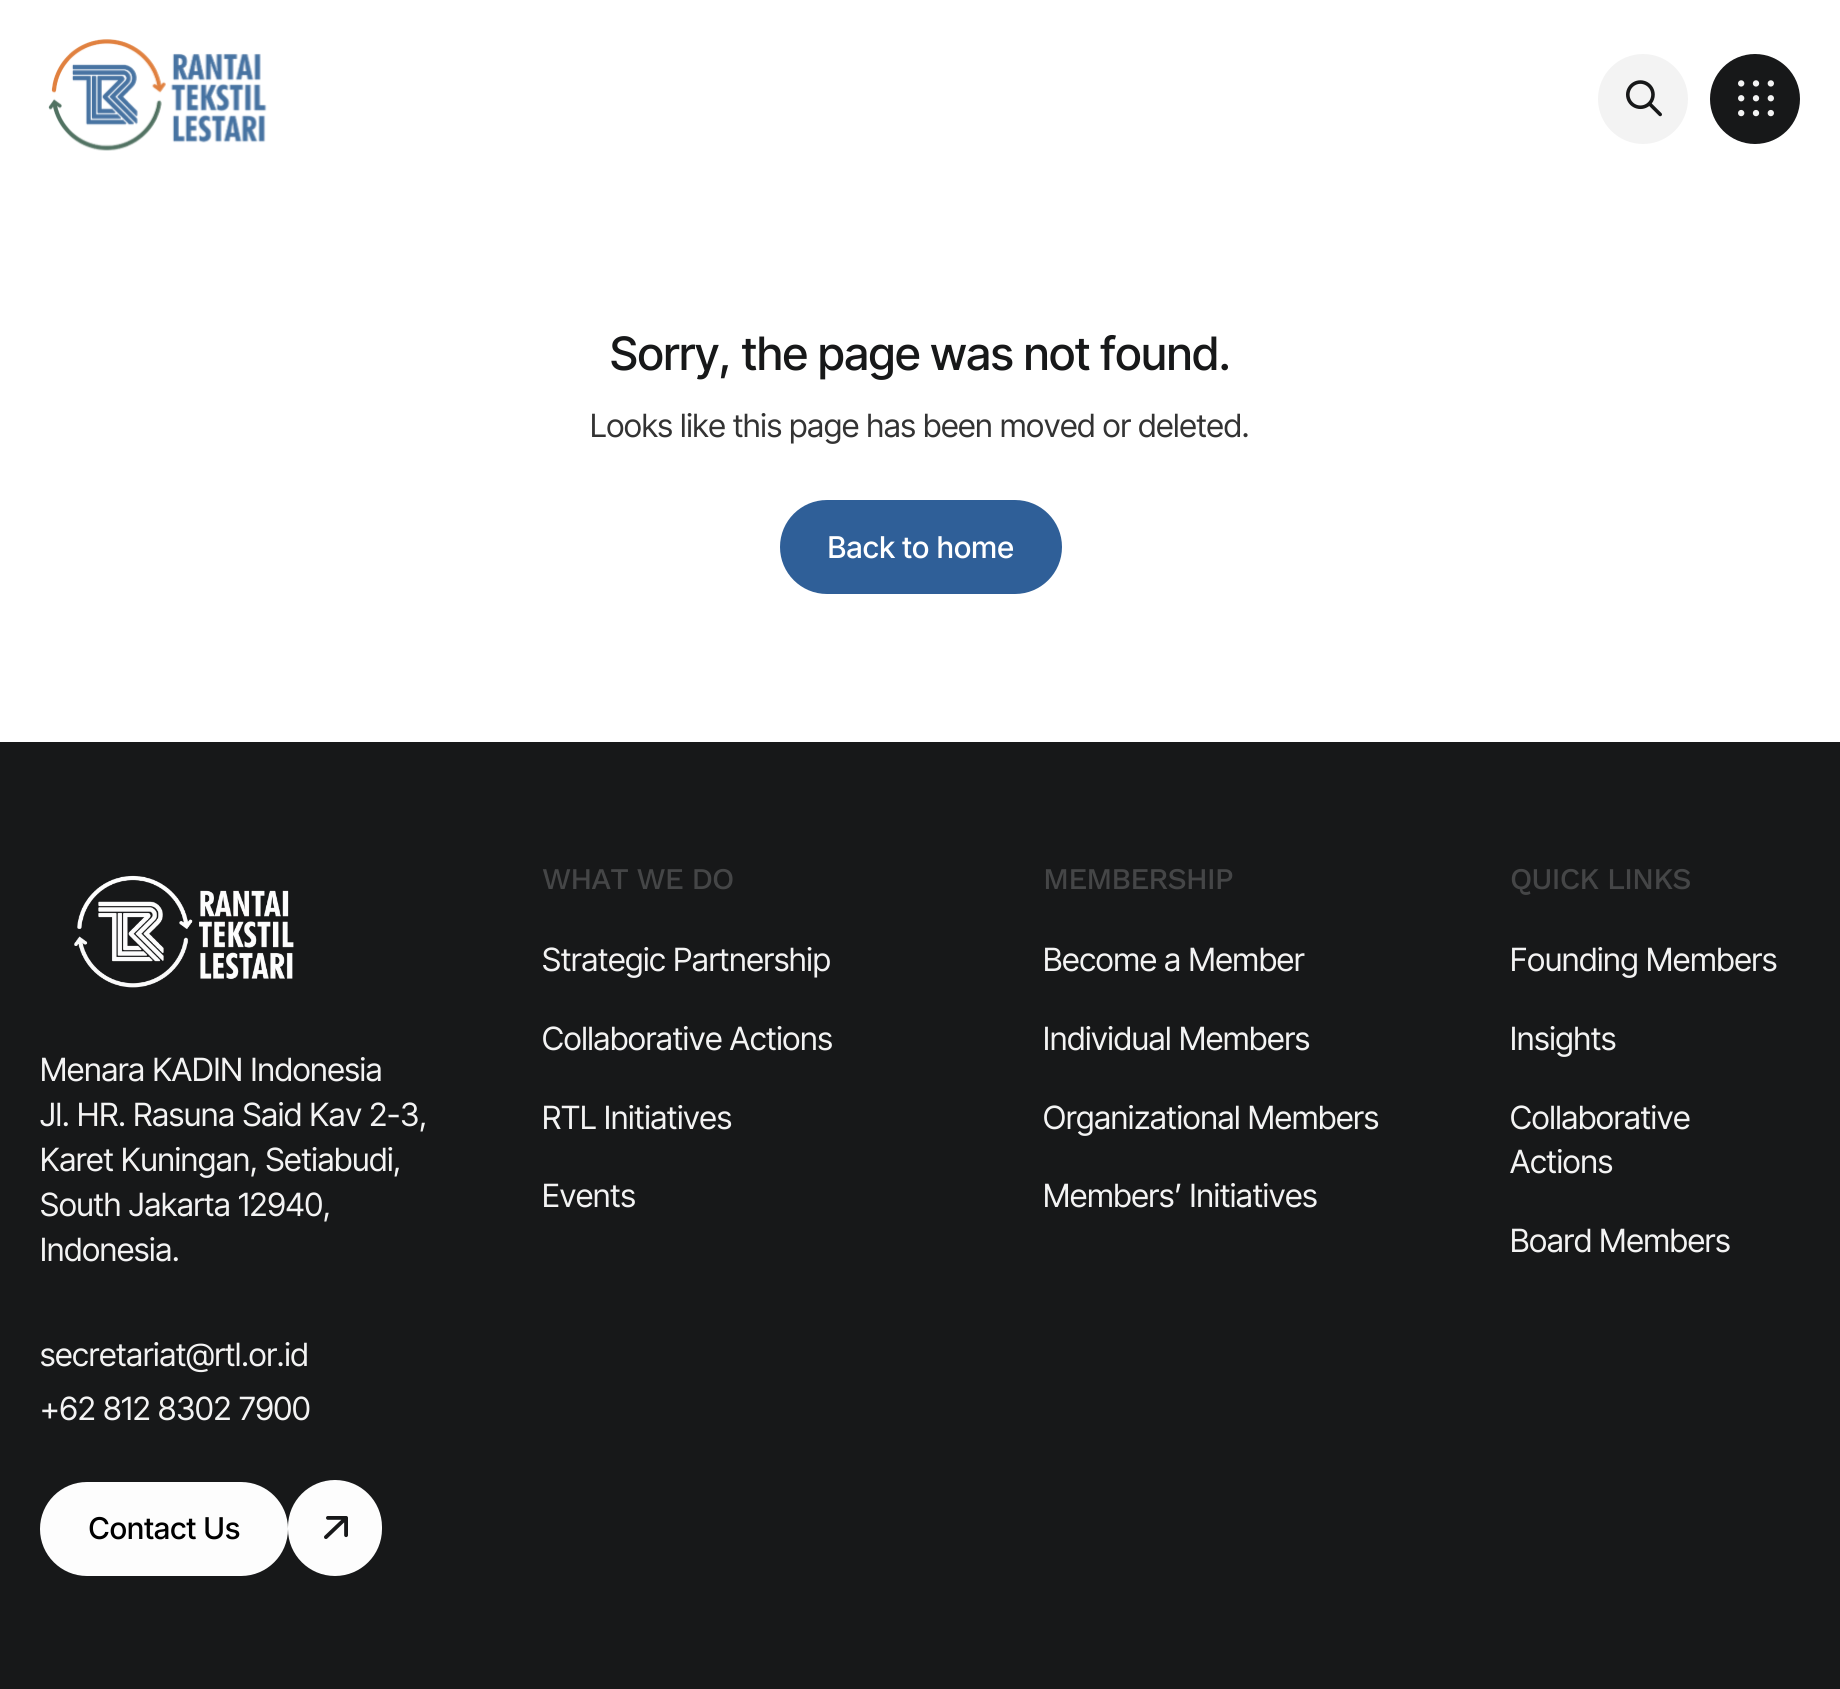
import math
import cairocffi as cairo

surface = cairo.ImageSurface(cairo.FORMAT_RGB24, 1840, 1689)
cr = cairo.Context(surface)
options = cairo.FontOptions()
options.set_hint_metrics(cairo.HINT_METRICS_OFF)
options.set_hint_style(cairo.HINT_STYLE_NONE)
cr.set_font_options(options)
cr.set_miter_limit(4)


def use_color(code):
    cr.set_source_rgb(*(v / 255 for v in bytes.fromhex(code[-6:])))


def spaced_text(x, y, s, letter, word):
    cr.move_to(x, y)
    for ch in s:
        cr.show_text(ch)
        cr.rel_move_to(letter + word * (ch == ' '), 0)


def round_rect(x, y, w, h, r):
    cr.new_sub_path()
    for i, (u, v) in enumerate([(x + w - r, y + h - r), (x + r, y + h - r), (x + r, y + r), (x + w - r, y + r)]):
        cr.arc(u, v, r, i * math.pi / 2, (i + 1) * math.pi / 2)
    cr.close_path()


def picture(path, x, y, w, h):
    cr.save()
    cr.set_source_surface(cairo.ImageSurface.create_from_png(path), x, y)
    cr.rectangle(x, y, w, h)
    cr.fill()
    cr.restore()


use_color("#ffffff")
cr.paint()
picture("img1.png", 48, 39, 219, 112)
use_color("#f3f3f3")
cr.arc(1643, 99, 45, 0, 2 * math.pi)
cr.fill()
picture("img2.png", 1626, 80, 36, 37)
use_color("#171819")
cr.arc(1755, 99, 45, 0, 2 * math.pi)
cr.fill()
picture("img3.png", 1738, 80, 36, 37)
cr.select_font_face("Inter Tight Medium")
cr.set_font_size(46)
cr.move_to(610, 370)
cr.show_text("Sorry, the page was not found.")
cr.select_font_face("Inter Tight")
cr.set_font_size(32)
use_color("#333333")
cr.move_to(590, 437)
cr.show_text("Looks like this page has been moved or deleted.")
use_color("#2f5f98")
round_rect(780, 500, 282, 94, 47)
cr.fill()
cr.select_font_face("Inter Medium")
cr.set_font_size(30)
use_color("#ffffff")
spaced_text(827, 558, "Back to home", -0.75, 0)
use_color("#171819")
cr.rectangle(0, 742, 1840, 947)
cr.fill()
picture("img4.png", 74, 875, 220, 113)
cr.select_font_face("Inter Tight")
cr.set_font_size(32)
use_color("#f3f3f3")
cr.move_to(40, 1081)
cr.show_text("Menara KADIN Indonesia")
cr.move_to(40, 1126)
cr.show_text("Jl. HR. Rasuna Said Kav 2-3,")
cr.move_to(40, 1171)
cr.show_text("Karet Kuningan, Setiabudi,")
cr.move_to(40, 1216)
cr.show_text("South Jakarta 12940,")
cr.move_to(40, 1261)
cr.show_text("Indonesia.")
cr.move_to(40, 1366)
cr.show_text("secretariat@rtl.or.id")
cr.move_to(40, 1420)
cr.show_text("+62 812 8302 7900")
use_color("#fdfdfd")
round_rect(40, 1482, 248, 94, 47)
cr.fill()
cr.select_font_face("Inter Medium")
cr.set_font_size(30)
use_color("#000000")
spaced_text(88, 1539, "Contact Us", -0.75, 0)
use_color("#fdfdfd")
round_rect(288, 1480, 94, 96, 47)
cr.fill()
picture("img5.png", 324, 1516, 24, 23)
cr.select_font_face("Work Sans Medium")
use_color("#454647")
spaced_text(542, 889, "WHAT WE DO", -1, 0)
cr.select_font_face("Inter Tight")
cr.set_font_size(32)
use_color("#f3f3f3")
cr.move_to(542, 971)
cr.show_text("Strategic Partnership")
cr.move_to(542, 1050)
cr.show_text("Collaborative Actions")
cr.move_to(542, 1129)
cr.show_text("RTL Initiatives")
cr.move_to(542, 1207)
cr.show_text("Events")
cr.select_font_face("Work Sans Medium")
cr.set_font_size(30)
use_color("#454647")
spaced_text(1043, 889, "MEMBERSHIP", -1, 0)
cr.select_font_face("Inter Tight")
cr.set_font_size(32)
use_color("#f3f3f3")
cr.move_to(1043, 971)
cr.show_text("Become a Member")
cr.move_to(1043, 1050)
cr.show_text("Individual Members")
cr.move_to(1043, 1129)
cr.show_text("Organizational Members")
cr.move_to(1043, 1207)
cr.show_text("Members’ Initiatives")
cr.select_font_face("Work Sans Medium")
cr.set_font_size(30)
use_color("#454647")
spaced_text(1510, 889, "QUICK LINKS", -1, 0)
cr.select_font_face("Inter Tight")
cr.set_font_size(32)
use_color("#f3f3f3")
cr.move_to(1510, 971)
cr.show_text("Founding Members")
cr.move_to(1510, 1050)
cr.show_text("Insights")
cr.move_to(1510, 1129)
cr.show_text("Collaborative")
cr.move_to(1510, 1173)
cr.show_text("Actions")
cr.move_to(1510, 1252)
cr.show_text("Board Members")
surface.write_to_png("result.png")
